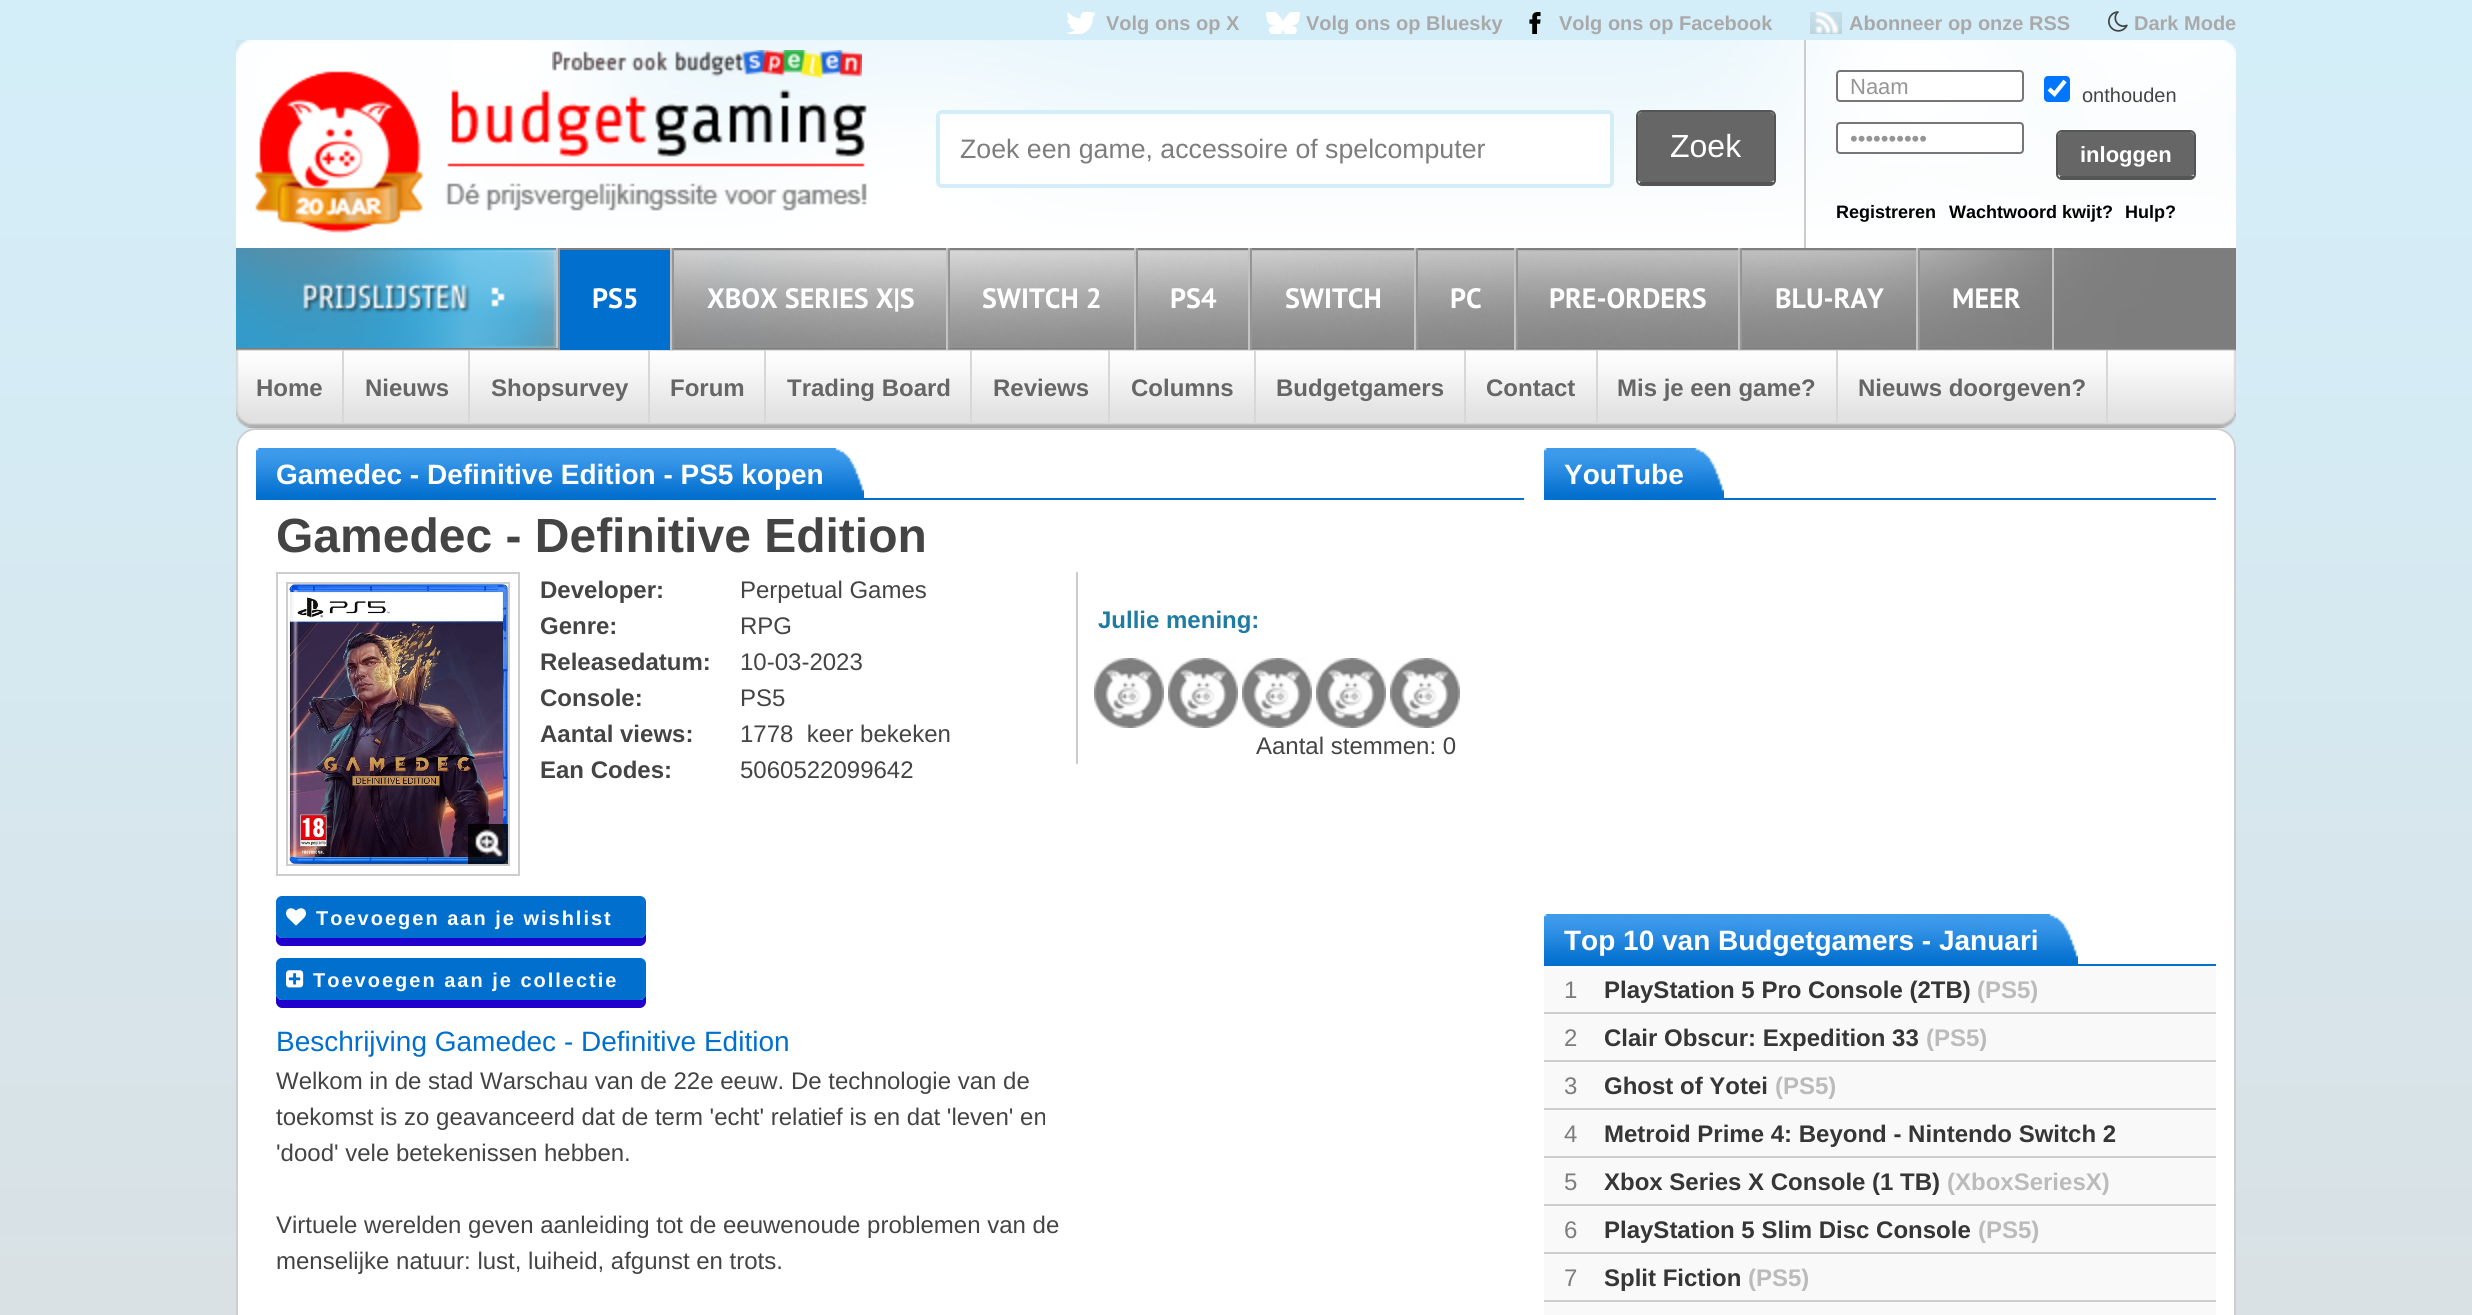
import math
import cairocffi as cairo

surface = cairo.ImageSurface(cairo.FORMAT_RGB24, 2472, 1315)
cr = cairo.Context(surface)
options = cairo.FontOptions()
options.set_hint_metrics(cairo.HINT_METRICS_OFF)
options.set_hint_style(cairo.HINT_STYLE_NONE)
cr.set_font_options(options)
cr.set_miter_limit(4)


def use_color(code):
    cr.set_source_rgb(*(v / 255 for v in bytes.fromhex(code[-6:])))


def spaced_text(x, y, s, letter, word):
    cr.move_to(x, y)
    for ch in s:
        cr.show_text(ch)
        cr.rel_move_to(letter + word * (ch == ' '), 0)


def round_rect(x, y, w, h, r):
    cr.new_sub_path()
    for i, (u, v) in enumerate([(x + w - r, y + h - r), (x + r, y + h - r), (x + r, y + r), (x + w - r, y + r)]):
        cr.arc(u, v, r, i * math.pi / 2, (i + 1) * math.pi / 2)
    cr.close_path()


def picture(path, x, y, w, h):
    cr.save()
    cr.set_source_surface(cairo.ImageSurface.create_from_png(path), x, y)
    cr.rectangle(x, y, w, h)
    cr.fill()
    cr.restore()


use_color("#ffffff")
cr.paint()
picture("img1.png", 0, 0, 2472, 1315)
picture("img2.png", 1066, 12, 30, 22)
cr.select_font_face("Liberation Sans", cairo.FONT_SLANT_NORMAL, cairo.FONT_WEIGHT_BOLD)
cr.set_font_size(20)
use_color("#a9a9a9")
cr.move_to(1106, 30)
cr.show_text("Volg ons op X")
picture("img3.png", 1266, 12, 34, 22)
cr.move_to(1306, 30)
cr.show_text("Volg ons op Bluesky")
picture("img4.png", 1529, 12, 12, 22)
cr.move_to(1559, 30)
cr.show_text("Volg ons op Facebook")
picture("img5.png", 1810, 12, 32, 22)
cr.move_to(1849, 30)
cr.show_text("Abonneer op onze RSS")
picture("img6.png", 2108, 11, 20, 21)
cr.move_to(2134, 30)
cr.show_text("Dark Mode")
picture("img7.png", 236, 40, 2000, 208)
picture("img9.png", 253, 71, 614, 162)
picture("img8.png", 552, 50, 310, 28)
use_color("#ffffff")
round_rect(938, 112, 674, 74, 4)
cr.fill_preserve()
use_color("#d4eef9")
cr.set_line_width(4)
cr.stroke()
cr.select_font_face("Liberation Sans")
cr.set_font_size(26.7)
use_color("#7d7d7d")
cr.move_to(960, 158)
cr.show_text("Zoek een game, accessoire of spelcomputer")
use_color("#666666")
cr.new_path()
cr.move_to(1642, 112)
cr.line_to(1770, 112)
cr.curve_to(1772, 112, 1774, 114, 1774, 116)
cr.line_to(1774, 180)
cr.curve_to(1774, 181, 1772, 182, 1770, 182)
cr.line_to(1642, 182)
cr.curve_to(1640, 182, 1638, 181, 1638, 180)
cr.line_to(1638, 116)
cr.curve_to(1638, 114, 1640, 112, 1642, 112)
cr.close_path()
cr.fill()
round_rect(1637, 111, 138, 74, 5)
use_color("#555555")
cr.set_line_width(2)
cr.stroke()
cr.rectangle(1640, 182, 134, 2)
cr.fill()
cr.set_font_size(32)
use_color("#ffffff")
cr.move_to(1670, 157)
cr.show_text("Zoek")
use_color("#cccccc")
cr.rectangle(1804, 40, 2, 208)
cr.fill()
use_color("#ffffff")
round_rect(1837, 71, 186, 30, 3)
cr.fill_preserve()
use_color("#767676")
cr.stroke()
cr.set_font_size(22)
use_color("#959595")
cr.move_to(1850, 94)
cr.show_text("Naam")
use_color("#ffffff")
round_rect(1837, 123, 186, 30, 3)
cr.fill_preserve()
use_color("#767676")
cr.stroke()
use_color("#959595")
cr.move_to(1850, 146)
cr.show_text("••••••••••")
use_color("#0075ff")
round_rect(2044, 76, 26, 26, 4)
cr.fill()
cr.new_path()
cr.move_to(2049, 89)
cr.line_to(2054.5, 94)
cr.line_to(2065, 81)
use_color("#ffffff")
cr.set_line_width(4.2)
cr.stroke()
cr.set_font_size(20)
use_color("#444444")
cr.move_to(2082, 102)
cr.show_text("onthouden")
use_color("#666666")
cr.new_path()
cr.move_to(2062, 132)
cr.line_to(2190, 132)
cr.curve_to(2192, 132, 2194, 134, 2194, 136)
cr.line_to(2194, 174)
cr.curve_to(2194, 175, 2192, 176, 2190, 176)
cr.line_to(2062, 176)
cr.curve_to(2060, 176, 2058, 175, 2058, 174)
cr.line_to(2058, 136)
cr.curve_to(2058, 134, 2060, 132, 2062, 132)
cr.close_path()
cr.fill()
round_rect(2057, 131, 138, 48, 5)
use_color("#555555")
cr.set_line_width(2)
cr.stroke()
cr.rectangle(2060, 176, 134, 2)
cr.fill()
cr.select_font_face("Liberation Sans", cairo.FONT_SLANT_NORMAL, cairo.FONT_WEIGHT_BOLD)
cr.set_font_size(22)
use_color("#ffffff")
cr.move_to(2080, 162)
cr.show_text("inloggen")
cr.set_font_size(18)
use_color("#000000")
cr.move_to(1836, 218)
cr.show_text("Registreren")
cr.move_to(1949, 218)
cr.show_text("Wachtwoord kwijt?")
cr.move_to(2125, 218)
cr.show_text("Hulp?")
picture("img10.png", 236, 248, 2000, 100)
use_color("#c4c3c3")
cr.rectangle(556, 248, 2, 100)
cr.fill()
picture("img11.png", 236, 348, 2000, 80)
cr.rectangle(670, 248, 2, 102)
cr.fill()
use_color("#969494")
cr.rectangle(558, 248, 2, 102)
cr.fill()
use_color("#006fcd")
cr.rectangle(560, 250, 110, 100)
cr.fill()
use_color("#807e7e")
cr.rectangle(560, 249, 110, 1)
cr.fill()
cr.select_font_face("PT Sans", cairo.FONT_SLANT_NORMAL, cairo.FONT_WEIGHT_BOLD)
cr.set_font_size(28)
use_color("#ffffff")
cr.move_to(592, 308)
cr.show_text("PS5")
use_color("#c4c3c3")
cr.rectangle(946, 248, 2, 102)
cr.fill()
use_color("#969494")
cr.rectangle(672, 248, 2, 102)
cr.fill()
use_color("#807e7e")
cr.rectangle(674, 248, 272, 2)
cr.fill()
use_color("#ffffff")
cr.move_to(707, 308)
cr.show_text("XBOX SERIES X|S")
use_color("#c4c3c3")
cr.rectangle(1134, 248, 2, 102)
cr.fill()
use_color("#969494")
cr.rectangle(948, 248, 2, 102)
cr.fill()
use_color("#807e7e")
cr.rectangle(950, 249, 184, 1)
cr.fill()
use_color("#ffffff")
cr.move_to(982, 308)
cr.show_text("SWITCH 2")
use_color("#c4c3c3")
cr.rectangle(1248, 248, 2, 102)
cr.fill()
use_color("#969494")
cr.rectangle(1136, 248, 2, 102)
cr.fill()
use_color("#807e7e")
cr.rectangle(1138, 249, 110, 1)
cr.fill()
use_color("#ffffff")
cr.move_to(1170, 308)
cr.show_text("PS4")
use_color("#c4c3c3")
cr.rectangle(1414, 248, 2, 102)
cr.fill()
use_color("#969494")
cr.rectangle(1250, 248, 2, 102)
cr.fill()
use_color("#807e7e")
cr.rectangle(1252, 249, 162, 1)
cr.fill()
use_color("#ffffff")
cr.move_to(1285, 308)
cr.show_text("SWITCH")
use_color("#c4c3c3")
cr.rectangle(1514, 248, 2, 102)
cr.fill()
use_color("#969494")
cr.rectangle(1416, 248, 2, 102)
cr.fill()
use_color("#807e7e")
cr.rectangle(1418, 249, 96, 1)
cr.fill()
use_color("#ffffff")
cr.move_to(1450, 308)
cr.show_text("PC")
use_color("#c4c3c3")
cr.rectangle(1738, 248, 2, 102)
cr.fill()
use_color("#969494")
cr.rectangle(1516, 248, 2, 102)
cr.fill()
use_color("#807e7e")
cr.rectangle(1518, 249, 220, 1)
cr.fill()
use_color("#ffffff")
cr.move_to(1549, 308)
cr.show_text("PRE-ORDERS")
use_color("#c4c3c3")
cr.rectangle(1916, 248, 2, 102)
cr.fill()
use_color("#969494")
cr.rectangle(1740, 248, 2, 102)
cr.fill()
use_color("#807e7e")
cr.rectangle(1742, 249, 174, 1)
cr.fill()
use_color("#ffffff")
cr.move_to(1775, 308)
cr.show_text("BLU-RAY")
use_color("#c4c3c3")
cr.rectangle(2052, 248, 2, 102)
cr.fill()
use_color("#969494")
cr.rectangle(1918, 248, 2, 102)
cr.fill()
use_color("#807e7e")
cr.rectangle(1920, 249, 132, 1)
cr.fill()
use_color("#ffffff")
cr.move_to(1952, 308)
cr.show_text("MEER")
use_color("#d7d7d7")
cr.rectangle(342, 350, 2, 74)
cr.fill()
cr.select_font_face("Liberation Sans", cairo.FONT_SLANT_NORMAL, cairo.FONT_WEIGHT_BOLD)
cr.set_font_size(24)
use_color("#666666")
cr.move_to(256, 396)
cr.show_text("Home")
use_color("#d7d7d7")
cr.rectangle(468, 350, 2, 74)
cr.fill()
use_color("#666666")
cr.move_to(365, 396)
cr.show_text("Nieuws")
use_color("#d7d7d7")
cr.rectangle(648, 350, 2, 74)
cr.fill()
use_color("#666666")
cr.move_to(491, 396)
cr.show_text("Shopsurvey")
use_color("#d7d7d7")
cr.rectangle(764, 350, 2, 74)
cr.fill()
use_color("#666666")
cr.move_to(670, 396)
cr.show_text("Forum")
use_color("#d7d7d7")
cr.rectangle(970, 350, 2, 74)
cr.fill()
use_color("#666666")
cr.move_to(787, 396)
cr.show_text("Trading Board")
use_color("#d7d7d7")
cr.rectangle(1108, 350, 2, 74)
cr.fill()
use_color("#666666")
cr.move_to(993, 396)
cr.show_text("Reviews")
use_color("#d7d7d7")
cr.rectangle(1254, 350, 2, 74)
cr.fill()
use_color("#666666")
cr.move_to(1131, 396)
cr.show_text("Columns")
use_color("#d7d7d7")
cr.rectangle(1464, 350, 2, 74)
cr.fill()
use_color("#666666")
cr.move_to(1276, 396)
cr.show_text("Budgetgamers")
use_color("#d7d7d7")
cr.rectangle(1596, 350, 2, 74)
cr.fill()
use_color("#666666")
cr.move_to(1486, 396)
cr.show_text("Contact")
use_color("#d7d7d7")
cr.rectangle(1836, 350, 2, 74)
cr.fill()
use_color("#666666")
cr.move_to(1617, 396)
cr.show_text("Mis je een game?")
use_color("#d7d7d7")
cr.rectangle(2106, 350, 2, 74)
cr.fill()
use_color("#666666")
cr.move_to(1858, 396)
cr.show_text("Nieuws doorgeven?")
use_color("#ffffff")
cr.new_path()
cr.move_to(256, 428)
cr.line_to(2216, 428)
cr.curve_to(2227, 428, 2236, 437, 2236, 448)
cr.line_to(2236, 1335)
cr.line_to(236, 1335)
cr.line_to(236, 448)
cr.curve_to(236, 437, 245, 428, 256, 428)
cr.close_path()
cr.fill()
use_color("#cdcdcd")
cr.set_fill_rule(cairo.FILL_RULE_EVEN_ODD)
cr.new_path()
cr.move_to(256, 428)
cr.line_to(2216, 428)
cr.curve_to(2227, 428, 2236, 437, 2236, 448)
cr.line_to(2236, 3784)
cr.line_to(236, 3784)
cr.line_to(236, 448)
cr.curve_to(236, 437, 245, 428, 256, 428)
cr.close_path()
cr.move_to(256, 430)
cr.line_to(2216, 430)
cr.curve_to(2226, 430, 2234, 438, 2234, 448)
cr.line_to(2234, 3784)
cr.line_to(238, 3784)
cr.line_to(238, 448)
cr.curve_to(238, 438, 246, 430, 256, 430)
cr.close_path()
cr.fill()
use_color("#006fcd")
cr.rectangle(256, 498, 1268, 2)
cr.fill()
picture("img12.png", 276, 448, 588, 50)
picture("img13.png", 256, 448, 20, 50)
cr.set_font_size(28)
use_color("#ffffff")
cr.move_to(276, 484)
cr.show_text("Gamedec - Definitive Edition - PS5 kopen")
cr.set_font_size(48)
use_color("#444444")
cr.move_to(276, 552)
cr.show_text("Gamedec - Definitive Edition")
cr.rectangle(277, 573, 242, 302)
use_color("#cdcdcd")
cr.stroke()
cr.rectangle(287, 583, 222, 282)
cr.stroke()
picture("img14.png", 288, 584, 220, 280)
picture("img15.png", 468, 824, 40, 40)
cr.set_font_size(24)
use_color("#444444")
cr.move_to(540, 598)
cr.show_text("Developer:")
cr.select_font_face("Liberation Sans")
cr.move_to(740, 598)
cr.show_text("Perpetual Games")
cr.select_font_face("Liberation Sans", cairo.FONT_SLANT_NORMAL, cairo.FONT_WEIGHT_BOLD)
cr.move_to(540, 634)
cr.show_text("Genre:")
cr.select_font_face("Liberation Sans")
cr.move_to(740, 634)
cr.show_text("RPG")
cr.select_font_face("Liberation Sans", cairo.FONT_SLANT_NORMAL, cairo.FONT_WEIGHT_BOLD)
cr.move_to(540, 670)
cr.show_text("Releasedatum:")
cr.select_font_face("Liberation Sans")
cr.move_to(740, 670)
cr.show_text("10-03-2023")
cr.select_font_face("Liberation Sans", cairo.FONT_SLANT_NORMAL, cairo.FONT_WEIGHT_BOLD)
cr.move_to(540, 706)
cr.show_text("Console:")
cr.select_font_face("Liberation Sans")
cr.move_to(740, 706)
cr.show_text("PS5")
cr.select_font_face("Liberation Sans", cairo.FONT_SLANT_NORMAL, cairo.FONT_WEIGHT_BOLD)
cr.move_to(540, 742)
cr.show_text("Aantal views:")
cr.select_font_face("Liberation Sans")
cr.move_to(740, 742)
cr.show_text("1778  keer bekeken")
cr.select_font_face("Liberation Sans", cairo.FONT_SLANT_NORMAL, cairo.FONT_WEIGHT_BOLD)
cr.move_to(540, 778)
cr.show_text("Ean Codes:")
cr.select_font_face("Liberation Sans")
cr.move_to(740, 778)
cr.show_text("5060522099642")
use_color("#1f00cd")
cr.set_fill_rule(cairo.FILL_RULE_WINDING)
cr.new_path()
cr.move_to(276, 932)
cr.line_to(276, 940)
cr.curve_to(276, 943, 279, 946, 282, 946)
cr.line_to(640, 946)
cr.curve_to(643, 946, 646, 943, 646, 940)
cr.line_to(646, 932)
cr.curve_to(646, 935, 643, 938, 640, 938)
cr.line_to(282, 938)
cr.curve_to(279, 938, 276, 935, 276, 932)
cr.close_path()
cr.fill()
use_color("#006fcd")
round_rect(276, 896, 370, 42, 6)
cr.fill()
picture("img16.png", 286, 908, 20, 18)
cr.select_font_face("Liberation Sans", cairo.FONT_SLANT_NORMAL, cairo.FONT_WEIGHT_BOLD)
cr.set_font_size(20)
use_color("#ffffff")
spaced_text(316, 925, "Toevoegen aan je wishlist", 2, 0)
use_color("#1f00cd")
cr.new_path()
cr.move_to(276, 994)
cr.line_to(276, 1002)
cr.curve_to(276, 1005, 279, 1008, 282, 1008)
cr.line_to(640, 1008)
cr.curve_to(643, 1008, 646, 1005, 646, 1002)
cr.line_to(646, 994)
cr.curve_to(646, 997, 643, 1000, 640, 1000)
cr.line_to(282, 1000)
cr.curve_to(279, 1000, 276, 997, 276, 994)
cr.close_path()
cr.fill()
use_color("#006fcd")
round_rect(276, 958, 370, 42, 6)
cr.fill()
picture("img17.png", 286, 970, 18, 18)
use_color("#ffffff")
spaced_text(313, 987, "Toevoegen aan je collectie", 2, 0)
cr.select_font_face("Liberation Sans")
cr.set_font_size(28)
use_color("#006fcd")
cr.move_to(276, 1051)
cr.show_text("Beschrijving Gamedec - Definitive Edition")
cr.set_font_size(24)
use_color("#444444")
cr.move_to(276, 1089)
cr.show_text("Welkom in de stad Warschau van de 22e eeuw. De technologie van de")
cr.move_to(276, 1125)
cr.show_text("toekomst is zo geavanceerd dat de term 'echt' relatief is en dat 'leven' en")
cr.move_to(276, 1161)
cr.show_text("'dood' vele betekenissen hebben.")
cr.move_to(276, 1233)
cr.show_text("Virtuele werelden geven aanleiding tot de eeuwenoude problemen van de")
cr.move_to(276, 1269)
cr.show_text("menselijke natuur: lust, luiheid, afgunst en trots.")
use_color("#cccccc")
cr.rectangle(1076, 572, 2, 192)
cr.fill()
cr.select_font_face("Liberation Sans", cairo.FONT_SLANT_NORMAL, cairo.FONT_WEIGHT_BOLD)
use_color("#1e7ba2")
cr.move_to(1098, 628)
cr.show_text("Jullie mening:")
picture("img18.png", 1094, 658, 70, 70)
picture("img18.png", 1168, 658, 70, 70)
picture("img18.png", 1242, 658, 70, 70)
picture("img18.png", 1316, 658, 70, 70)
picture("img18.png", 1390, 658, 70, 70)
cr.select_font_face("Liberation Sans")
use_color("#444444")
cr.move_to(1256, 754)
cr.show_text("Aantal stemmen: 0")
use_color("#006fcd")
cr.rectangle(1544, 498, 672, 2)
cr.fill()
picture("img19.png", 1564, 448, 160, 50)
picture("img13.png", 1544, 448, 20, 50)
cr.select_font_face("Liberation Sans", cairo.FONT_SLANT_NORMAL, cairo.FONT_WEIGHT_BOLD)
cr.set_font_size(28)
use_color("#ffffff")
cr.move_to(1564, 484)
cr.show_text("YouTube")
use_color("#006fcd")
cr.rectangle(1544, 964, 672, 2)
cr.fill()
picture("img20.png", 1564, 914, 514, 50)
picture("img21.png", 1544, 914, 20, 50)
use_color("#ffffff")
cr.move_to(1564, 950)
cr.show_text("Top 10 van Budgetgamers - Januari")
use_color("#f9f9f9")
cr.rectangle(1544, 966, 672, 46)
cr.fill()
use_color("#cdcdcd")
cr.rectangle(1544, 1012, 672, 2)
cr.fill()
cr.select_font_face("Liberation Sans")
cr.set_font_size(24)
use_color("#7d7d7d")
cr.move_to(1564, 998)
cr.show_text("1")
cr.select_font_face("Liberation Sans", cairo.FONT_SLANT_NORMAL, cairo.FONT_WEIGHT_BOLD)
use_color("#363636")
cr.move_to(1604, 998)
cr.show_text("PlayStation 5 Pro Console (2TB)")
use_color("#bbbbbb")
cr.move_to(1977, 998)
cr.show_text("(PS5)")
use_color("#f9f9f9")
cr.rectangle(1544, 1014, 672, 46)
cr.fill()
use_color("#cdcdcd")
cr.rectangle(1544, 1060, 672, 2)
cr.fill()
cr.select_font_face("Liberation Sans")
use_color("#7d7d7d")
cr.move_to(1564, 1046)
cr.show_text("2")
cr.select_font_face("Liberation Sans", cairo.FONT_SLANT_NORMAL, cairo.FONT_WEIGHT_BOLD)
use_color("#363636")
cr.move_to(1604, 1046)
cr.show_text("Clair Obscur: Expedition 33")
use_color("#bbbbbb")
cr.move_to(1926, 1046)
cr.show_text("(PS5)")
use_color("#f9f9f9")
cr.rectangle(1544, 1062, 672, 46)
cr.fill()
use_color("#cdcdcd")
cr.rectangle(1544, 1108, 672, 2)
cr.fill()
cr.select_font_face("Liberation Sans")
use_color("#7d7d7d")
cr.move_to(1564, 1094)
cr.show_text("3")
cr.select_font_face("Liberation Sans", cairo.FONT_SLANT_NORMAL, cairo.FONT_WEIGHT_BOLD)
use_color("#363636")
cr.move_to(1604, 1094)
cr.show_text("Ghost of Yotei")
use_color("#bbbbbb")
cr.move_to(1775, 1094)
cr.show_text("(PS5)")
use_color("#f9f9f9")
cr.rectangle(1544, 1110, 672, 46)
cr.fill()
use_color("#cdcdcd")
cr.rectangle(1544, 1156, 672, 2)
cr.fill()
cr.select_font_face("Liberation Sans")
use_color("#7d7d7d")
cr.move_to(1564, 1142)
cr.show_text("4")
cr.select_font_face("Liberation Sans", cairo.FONT_SLANT_NORMAL, cairo.FONT_WEIGHT_BOLD)
use_color("#363636")
cr.move_to(1604, 1142)
cr.show_text("Metroid Prime 4: Beyond - Nintendo Switch 2")
use_color("#f9f9f9")
cr.rectangle(1544, 1158, 672, 46)
cr.fill()
use_color("#cdcdcd")
cr.rectangle(1544, 1204, 672, 2)
cr.fill()
cr.select_font_face("Liberation Sans")
use_color("#7d7d7d")
cr.move_to(1564, 1190)
cr.show_text("5")
cr.select_font_face("Liberation Sans", cairo.FONT_SLANT_NORMAL, cairo.FONT_WEIGHT_BOLD)
use_color("#363636")
cr.move_to(1604, 1190)
cr.show_text("Xbox Series X Console (1 TB)")
use_color("#bbbbbb")
cr.move_to(1947, 1190)
cr.show_text("(XboxSeriesX)")
use_color("#f9f9f9")
cr.rectangle(1544, 1206, 672, 46)
cr.fill()
use_color("#cdcdcd")
cr.rectangle(1544, 1252, 672, 2)
cr.fill()
cr.select_font_face("Liberation Sans")
use_color("#7d7d7d")
cr.move_to(1564, 1238)
cr.show_text("6")
cr.select_font_face("Liberation Sans", cairo.FONT_SLANT_NORMAL, cairo.FONT_WEIGHT_BOLD)
use_color("#363636")
cr.move_to(1604, 1238)
cr.show_text("PlayStation 5 Slim Disc Console")
use_color("#bbbbbb")
cr.move_to(1978, 1238)
cr.show_text("(PS5)")
use_color("#f9f9f9")
cr.rectangle(1544, 1254, 672, 46)
cr.fill()
use_color("#cdcdcd")
cr.rectangle(1544, 1300, 672, 2)
cr.fill()
cr.select_font_face("Liberation Sans")
use_color("#7d7d7d")
cr.move_to(1564, 1286)
cr.show_text("7")
cr.select_font_face("Liberation Sans", cairo.FONT_SLANT_NORMAL, cairo.FONT_WEIGHT_BOLD)
use_color("#363636")
cr.move_to(1604, 1286)
cr.show_text("Split Fiction")
use_color("#bbbbbb")
cr.move_to(1748, 1286)
cr.show_text("(PS5)")
use_color("#f9f9f9")
cr.rectangle(1544, 1302, 672, 13)
cr.fill()
surface.write_to_png("result.png")
